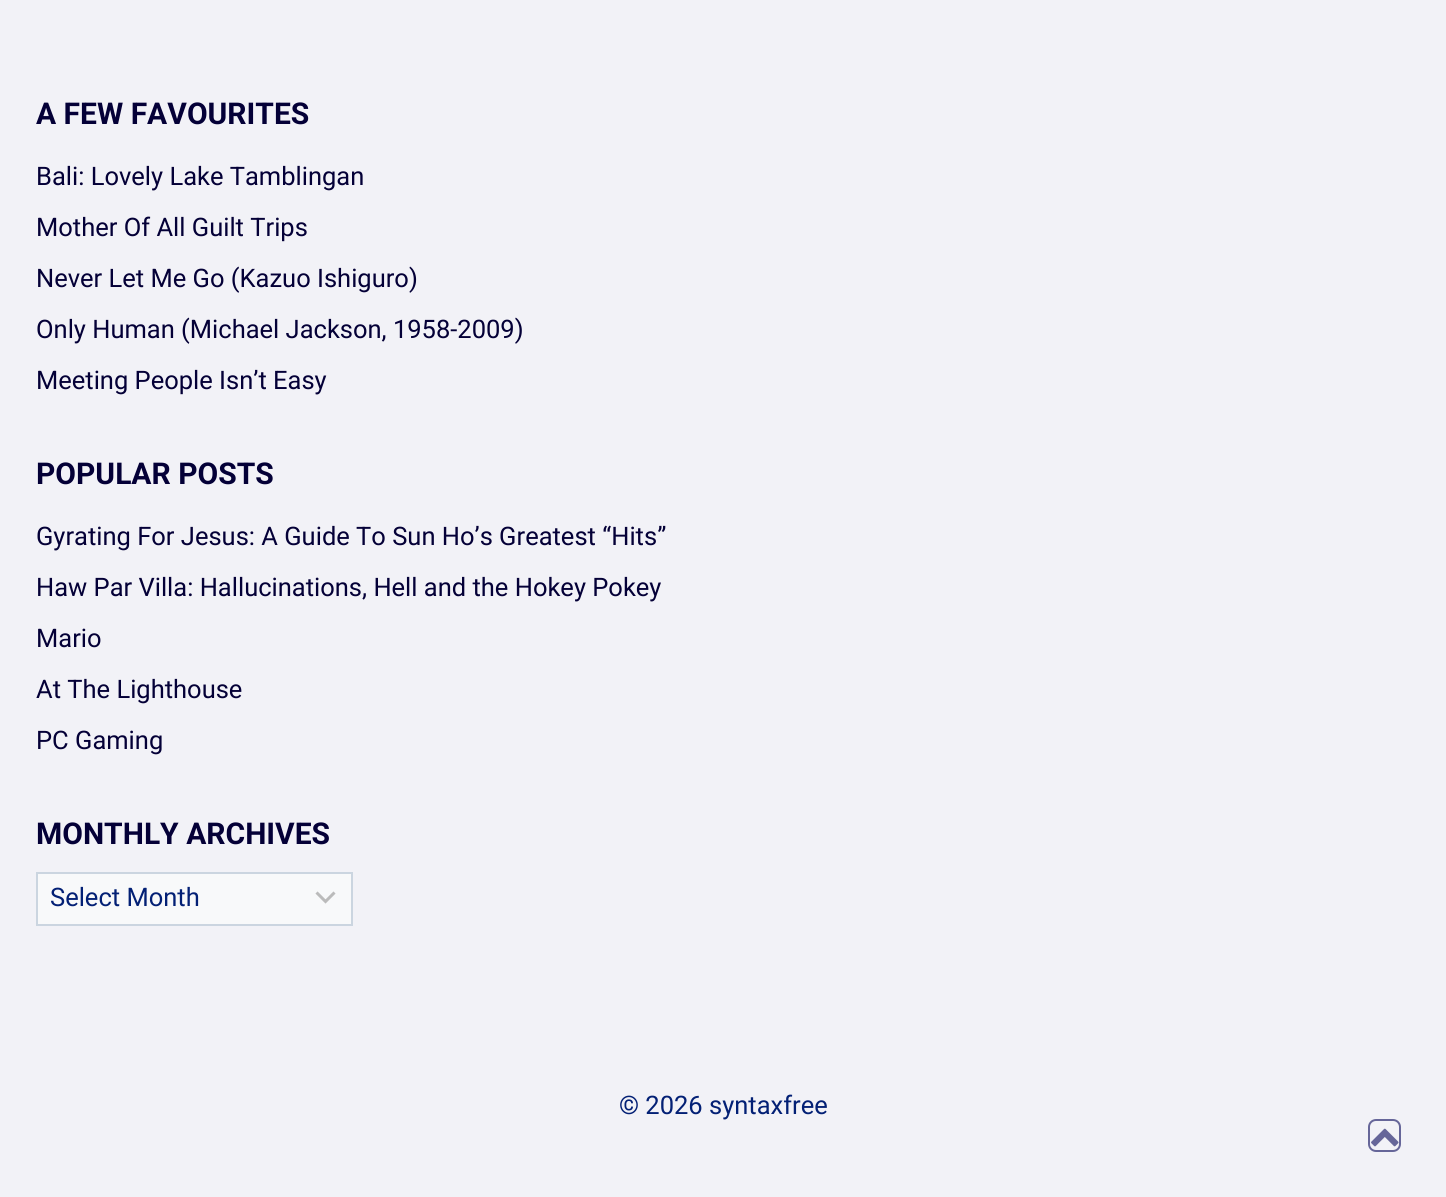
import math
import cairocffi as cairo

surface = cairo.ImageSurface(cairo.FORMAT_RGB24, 1446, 1197)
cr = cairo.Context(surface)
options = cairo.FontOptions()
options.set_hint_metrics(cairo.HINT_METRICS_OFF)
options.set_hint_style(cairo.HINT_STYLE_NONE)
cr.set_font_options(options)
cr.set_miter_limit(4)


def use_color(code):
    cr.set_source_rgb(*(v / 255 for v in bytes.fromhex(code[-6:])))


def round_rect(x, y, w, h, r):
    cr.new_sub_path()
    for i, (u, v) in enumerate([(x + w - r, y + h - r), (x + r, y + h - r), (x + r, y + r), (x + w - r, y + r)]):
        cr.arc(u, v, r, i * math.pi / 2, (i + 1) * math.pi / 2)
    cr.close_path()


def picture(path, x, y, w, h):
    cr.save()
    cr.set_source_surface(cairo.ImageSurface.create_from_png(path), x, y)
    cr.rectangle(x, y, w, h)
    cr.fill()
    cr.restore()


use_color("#f2f2f7")
cr.paint()
cr.select_font_face("Roboto", cairo.FONT_SLANT_NORMAL, cairo.FONT_WEIGHT_BOLD)
cr.set_font_size(30)
use_color("#040037")
cr.move_to(36, 124)
cr.show_text("A FEW FAVOURITES")
cr.select_font_face("Roboto")
cr.set_font_size(25.5)
cr.move_to(36, 185)
cr.show_text("Bali: Lovely Lake Tamblingan")
cr.move_to(36, 236)
cr.show_text("Mother Of All Guilt Trips")
cr.move_to(36, 287)
cr.show_text("Never Let Me Go (Kazuo Ishiguro)")
cr.move_to(36, 338)
cr.show_text("Only Human (Michael Jackson, 1958-2009)")
cr.move_to(36, 389)
cr.show_text("Meeting People Isn’t Easy")
cr.select_font_face("Roboto", cairo.FONT_SLANT_NORMAL, cairo.FONT_WEIGHT_BOLD)
cr.set_font_size(30)
cr.move_to(36, 484)
cr.show_text("POPULAR POSTS")
cr.select_font_face("Roboto")
cr.set_font_size(25.5)
cr.move_to(36, 545)
cr.show_text("Gyrating For Jesus: A Guide To Sun Ho’s Greatest “Hits”")
cr.move_to(36, 596)
cr.show_text("Haw Par Villa: Hallucinations, Hell and the Hokey Pokey")
cr.move_to(36, 647)
cr.show_text("Mario")
cr.move_to(36, 698)
cr.show_text("At The Lighthouse")
cr.move_to(36, 749)
cr.show_text("PC Gaming")
cr.select_font_face("Roboto", cairo.FONT_SLANT_NORMAL, cairo.FONT_WEIGHT_BOLD)
cr.set_font_size(30)
cr.move_to(36, 844)
cr.show_text("MONTHLY ARCHIVES")
use_color("#f8f9fa")
cr.rectangle(38, 874, 313, 50)
cr.fill()
cr.new_path()
cr.move_to(316.5, 892.5)
cr.line_to(325.5, 901.5)
cr.line_to(334.5, 892.5)
use_color("#bbbbbb")
cr.set_line_width(3)
cr.stroke()
cr.rectangle(37, 873, 315, 52)
use_color("#cbd5e0")
cr.set_line_width(2)
cr.stroke()
cr.select_font_face("Roboto")
cr.set_font_size(25.5)
use_color("#032075")
cr.move_to(50, 906)
cr.show_text("Select Month")
cr.move_to(619, 1114)
cr.show_text("© 2026 syntaxfree")
round_rect(1369, 1120, 31, 31, 7)
use_color("#666699")
cr.stroke()
picture("img1.png", 1371, 1128, 28, 19)
surface.write_to_png("result.png")
